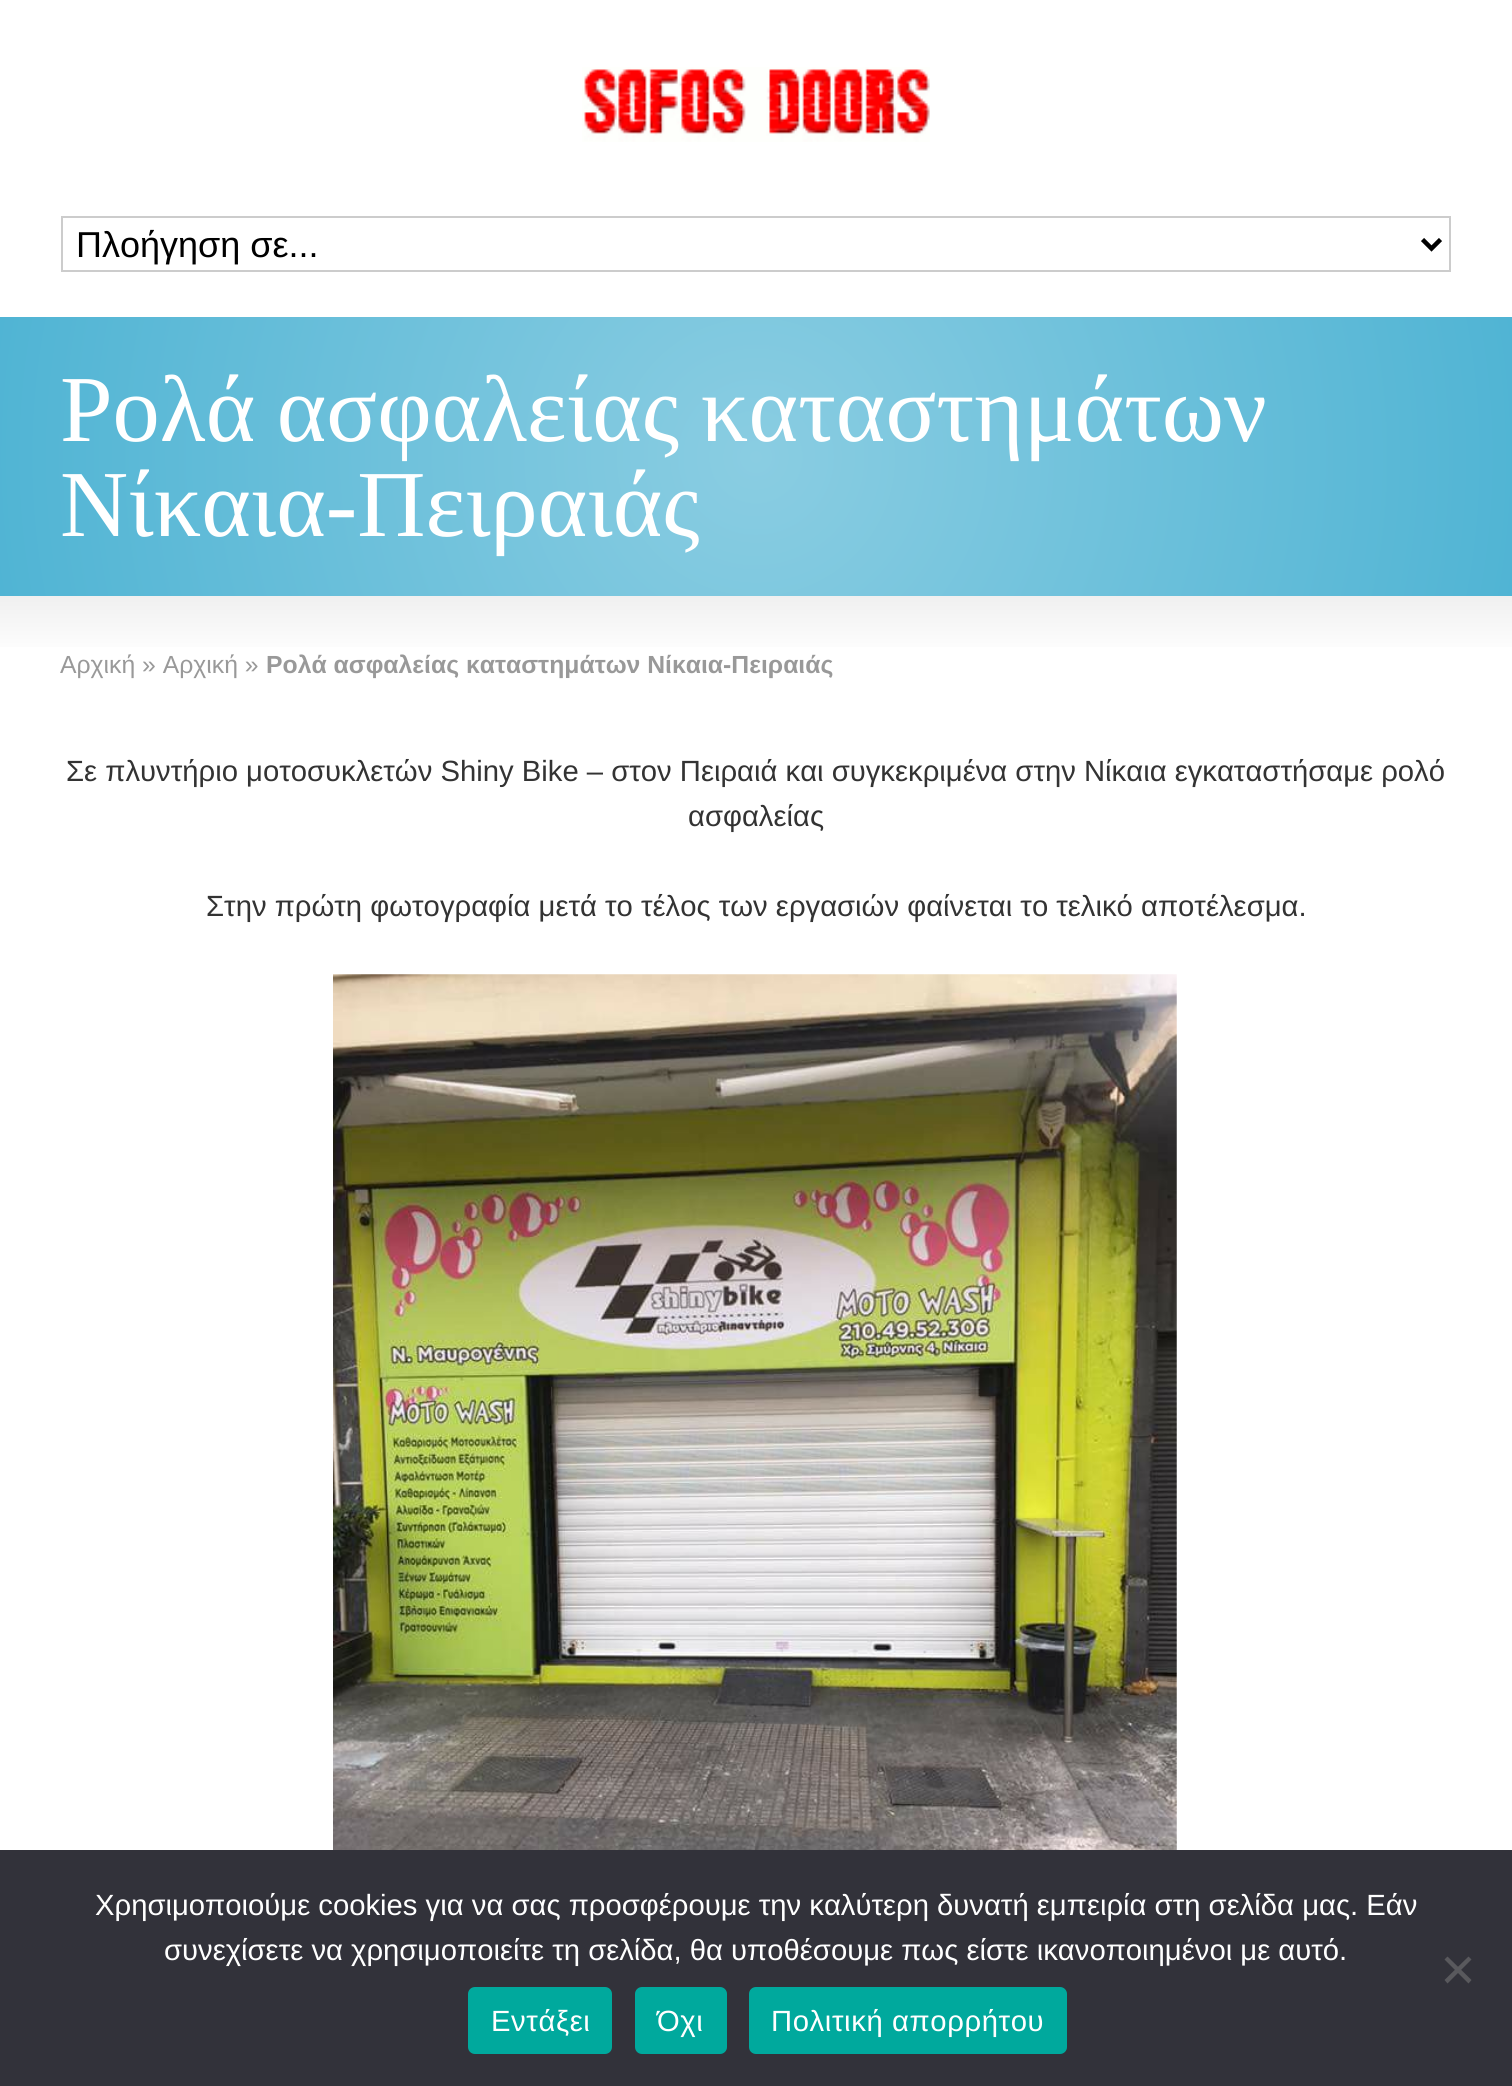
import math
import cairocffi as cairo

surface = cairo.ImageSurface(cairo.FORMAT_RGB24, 1512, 2086)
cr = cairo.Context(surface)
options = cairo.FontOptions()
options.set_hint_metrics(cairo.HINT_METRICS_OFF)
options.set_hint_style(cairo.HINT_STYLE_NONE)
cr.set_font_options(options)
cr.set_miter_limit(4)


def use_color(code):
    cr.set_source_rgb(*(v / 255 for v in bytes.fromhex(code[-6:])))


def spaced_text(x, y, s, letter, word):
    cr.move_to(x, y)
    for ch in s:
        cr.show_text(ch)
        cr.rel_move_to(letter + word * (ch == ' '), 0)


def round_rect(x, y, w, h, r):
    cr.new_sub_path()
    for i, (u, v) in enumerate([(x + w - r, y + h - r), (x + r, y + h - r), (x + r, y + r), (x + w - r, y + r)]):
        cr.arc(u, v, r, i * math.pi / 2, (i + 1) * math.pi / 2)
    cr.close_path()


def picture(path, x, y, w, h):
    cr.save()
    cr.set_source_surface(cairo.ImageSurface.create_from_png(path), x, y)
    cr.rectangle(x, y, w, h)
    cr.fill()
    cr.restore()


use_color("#ffffff")
cr.paint()
picture("img1.png", 582, 67, 348, 75)
cr.rectangle(62, 217, 1388, 54)
use_color("#cccccc")
cr.stroke()
cr.new_path()
cr.move_to(1422.5, 239.5)
cr.line_to(1431.5, 248.5)
cr.line_to(1440.5, 239.5)
use_color("#000000")
cr.set_line_width(4.5)
cr.stroke()
cr.select_font_face("Liberation Sans")
cr.set_font_size(36)
cr.move_to(76, 257)
cr.show_text("Πλοήγηση σε...")
gradient = cairo.RadialGradient(756, 457, 0, 756, 457, 769)
gradient.add_color_stop_rgba(0, 0.541, 0.804, 0.886, 1)
gradient.add_color_stop_rgba(1, 0.314, 0.706, 0.831, 1)
cr.set_source(gradient)
cr.rectangle(0, 317, 1512, 279)
cr.fill()
cr.select_font_face("Liberation Serif")
cr.set_font_size(94.5)
use_color("#ffffff")
spaced_text(60, 441, "Ρολά ασφαλείας καταστημάτων", 0, -2)
cr.move_to(60, 536)
cr.show_text("Νίκαια-Πειραιάς")
gradient = cairo.LinearGradient(756, 596, 756, 657)
gradient.add_color_stop_rgba(0, 0.941, 0.941, 0.941, 1)
gradient.add_color_stop_rgba(1, 1, 1, 1, 1)
cr.set_source(gradient)
cr.rectangle(0, 596, 1512, 51)
cr.fill()
cr.select_font_face("Liberation Sans")
cr.set_font_size(24.75)
use_color("#999999")
cr.move_to(60, 673)
cr.show_text("Αρχική » Αρχική »")
cr.select_font_face("Liberation Sans", cairo.FONT_SLANT_NORMAL, cairo.FONT_WEIGHT_BOLD)
cr.move_to(266, 673)
cr.show_text("Ρολά ασφαλείας καταστημάτων Νίκαια-Πειραιάς")
cr.select_font_face("Liberation Sans")
cr.set_font_size(29.25)
use_color("#333333")
cr.move_to(66, 781)
cr.show_text("Σε πλυντήριο μοτοσυκλετών Shiny Bike – στον Πειραιά και συγκεκριμένα στην Νίκαια εγκαταστήσαμε ρολό")
cr.move_to(688, 826)
cr.show_text("ασφαλείας")
cr.move_to(206, 916)
cr.show_text("Στην πρώτη φωτογραφία μετά το τέλος των εργασιών φαίνεται το τελικό αποτέλεσμα.")
picture("img2.png", 333, 974, 844, 876)
use_color("#32323a")
cr.rectangle(0, 1850, 1512, 236)
cr.fill()
use_color("#ffffff")
cr.move_to(95, 1915)
cr.show_text("Χρησιμοποιούμε cookies για να σας προσφέρουμε την καλύτερη δυνατή εμπειρία στη σελίδα μας. Εάν")
cr.move_to(164, 1960)
cr.show_text("συνεχίσετε να χρησιμοποιείτε τη σελίδα, θα υποθέσουμε πως είστε ικανοποιημένοι με αυτό.")
use_color("#59595d")
cr.new_path()
cr.move_to(1468.5, 1956.5)
cr.line_to(1471.5, 1959.5)
cr.line_to(1447.5, 1983.5)
cr.line_to(1444.5, 1980)
cr.close_path()
cr.fill()
cr.new_path()
cr.move_to(1444.5, 1959.5)
cr.line_to(1447.5, 1956.5)
cr.line_to(1471.5, 1980)
cr.line_to(1468.5, 1983.5)
cr.close_path()
cr.fill()
use_color("#00a99d")
round_rect(468, 1987, 144, 67, 7)
cr.fill()
use_color("#ffffff")
spaced_text(491, 2031, "Εντάξει", 0.6, 0)
use_color("#00a99d")
round_rect(635, 1987, 92, 67, 7)
cr.fill()
use_color("#ffffff")
spaced_text(657, 2031, "Όχι", 0.6, 0)
use_color("#00a99d")
round_rect(749, 1987, 318, 67, 7)
cr.fill()
use_color("#ffffff")
spaced_text(771, 2031, "Πολιτική απορρήτου", 0.6, 0)
surface.write_to_png("result.png")
